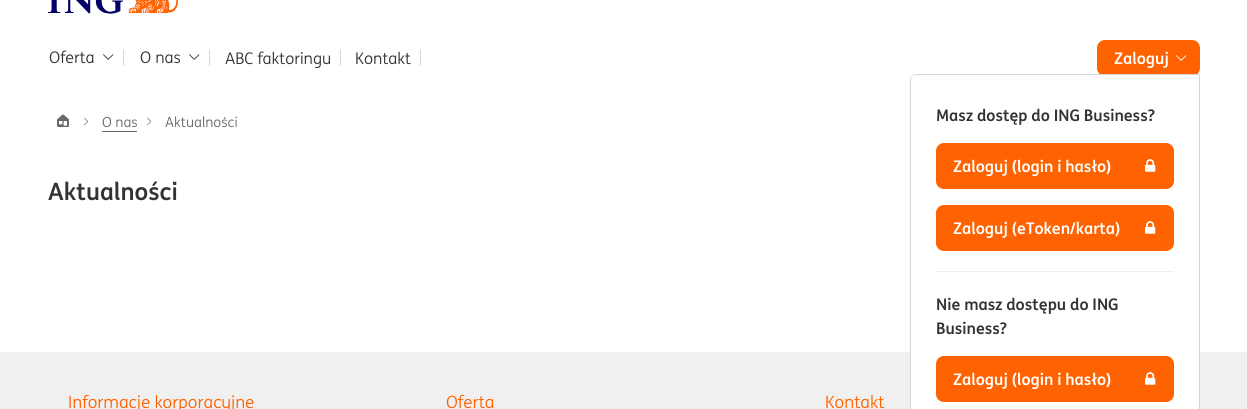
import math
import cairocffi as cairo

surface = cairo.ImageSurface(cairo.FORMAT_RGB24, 1247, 409)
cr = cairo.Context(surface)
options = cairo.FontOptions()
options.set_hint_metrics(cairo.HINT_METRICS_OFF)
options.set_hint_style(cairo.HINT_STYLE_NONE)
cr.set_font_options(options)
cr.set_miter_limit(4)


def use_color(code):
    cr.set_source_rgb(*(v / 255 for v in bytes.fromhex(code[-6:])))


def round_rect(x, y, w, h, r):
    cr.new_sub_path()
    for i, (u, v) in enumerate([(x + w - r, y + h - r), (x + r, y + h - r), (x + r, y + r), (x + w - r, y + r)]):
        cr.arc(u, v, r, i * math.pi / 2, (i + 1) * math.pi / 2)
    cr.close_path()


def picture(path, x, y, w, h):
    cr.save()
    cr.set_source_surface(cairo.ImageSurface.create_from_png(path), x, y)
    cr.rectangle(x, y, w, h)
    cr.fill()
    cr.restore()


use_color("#ffffff")
cr.paint()
picture("img1.png", 48, 0, 130, 14)
cr.select_font_face("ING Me")
cr.set_font_size(16)
use_color("#333333")
cr.move_to(49, 63)
cr.show_text("Oferta")
picture("img2.png", 103, 54, 11, 6)
use_color("#d6d6d6")
cr.rectangle(123, 50, 1, 16)
cr.fill()
use_color("#333333")
cr.move_to(140, 63)
cr.show_text("O nas")
picture("img2.png", 189, 54, 11, 6)
use_color("#d6d6d6")
cr.rectangle(209, 50, 1, 16)
cr.fill()
use_color("#333333")
cr.move_to(225, 64)
cr.show_text("ABC faktoringu")
use_color("#d6d6d6")
cr.rectangle(340, 50, 1, 16)
cr.fill()
use_color("#333333")
cr.move_to(355, 64)
cr.show_text("Kontakt")
use_color("#d6d6d6")
cr.rectangle(420, 50, 1, 16)
cr.fill()
use_color("#ff6200")
round_rect(1097, 40, 103, 36, 8)
cr.fill()
cr.select_font_face("ING Me", cairo.FONT_SLANT_NORMAL, cairo.FONT_WEIGHT_BOLD)
use_color("#ffffff")
cr.move_to(1114, 64)
cr.show_text("Zaloguj")
picture("img3.png", 1176, 55, 11, 6)
cr.new_path()
cr.move_to(916, 74)
cr.line_to(1200, 74)
cr.line_to(1200, 409)
cr.curve_to(1200, 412.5, 1197.5, 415, 1194, 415)
cr.line_to(916, 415)
cr.curve_to(912.5, 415, 910, 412.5, 910, 409)
cr.line_to(910, 80)
cr.curve_to(910, 76.5, 912.5, 74, 916, 74)
cr.close_path()
cr.fill()
use_color("#d6d6d6")
cr.new_path()
cr.move_to(916, 74)
cr.curve_to(914, 74, 913, 75, 912, 76)
cr.curve_to(913, 76, 914, 75, 916, 75)
cr.line_to(1199, 75)
cr.line_to(1200, 74)
cr.close_path()
cr.fill()
cr.new_path()
cr.move_to(1200, 74)
cr.line_to(1199, 75)
cr.line_to(1199, 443)
cr.line_to(1199, 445)
cr.line_to(1199, 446)
cr.line_to(1200, 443)
cr.close_path()
cr.fill()
cr.new_path()
cr.move_to(910, 80)
cr.line_to(910, 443)
cr.line_to(911, 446)
cr.line_to(911, 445)
cr.line_to(911, 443)
cr.line_to(911, 80)
cr.curve_to(911, 78, 912, 77, 912, 76)
cr.curve_to(911, 77, 910, 78, 910, 80)
cr.close_path()
cr.fill()
use_color("#333333")
cr.move_to(936, 121)
cr.show_text("Masz dostęp do ING Business?")
use_color("#ff6200")
round_rect(936, 143, 238, 46, 8)
cr.fill()
use_color("#ffffff")
cr.move_to(953, 172)
cr.show_text("Zaloguj (login i hasło)")
picture("img4.png", 1145, 159, 11, 13)
use_color("#ff6200")
round_rect(936, 205, 238, 46, 8)
cr.fill()
use_color("#ffffff")
cr.move_to(953, 234)
cr.show_text("Zaloguj (eToken/karta)")
picture("img4.png", 1145, 221, 11, 13)
use_color("#eeeeee")
cr.rectangle(936, 271, 238, 1)
cr.fill()
use_color("#333333")
cr.move_to(936, 310)
cr.show_text("Nie masz dostępu do ING")
cr.move_to(936, 334)
cr.show_text("Business?")
use_color("#ff6200")
round_rect(936, 356, 238, 46, 8)
cr.fill()
use_color("#ffffff")
cr.move_to(953, 385)
cr.show_text("Zaloguj (login i hasło)")
picture("img4.png", 1145, 372, 11, 13)
picture("img5.png", 57, 114, 12, 13)
picture("img6.png", 84, 117, 5, 9)
cr.select_font_face("ING Me")
cr.set_font_size(14)
use_color("#696969")
cr.move_to(102, 127)
cr.show_text("O nas")
cr.rectangle(102, 131, 35, 1)
cr.fill()
picture("img6.png", 147, 117, 5, 9)
cr.move_to(165, 127)
cr.show_text("Aktualności")
cr.select_font_face("ING Me", cairo.FONT_SLANT_NORMAL, cairo.FONT_WEIGHT_BOLD)
cr.set_font_size(24)
use_color("#333333")
cr.move_to(48, 200)
cr.show_text("Aktualności")
use_color("#f0f0f0")
cr.rectangle(0, 352, 910, 57)
cr.fill()
cr.select_font_face("ING Me")
cr.set_font_size(17)
use_color("#ff6200")
cr.move_to(68, 408)
cr.show_text("Informacje korporacyjne")
cr.move_to(446, 408)
cr.show_text("Oferta")
cr.move_to(825, 408)
cr.show_text("Kontakt")
use_color("#f0f0f0")
cr.rectangle(1200, 352, 47, 57)
cr.fill()
surface.write_to_png("result.png")
